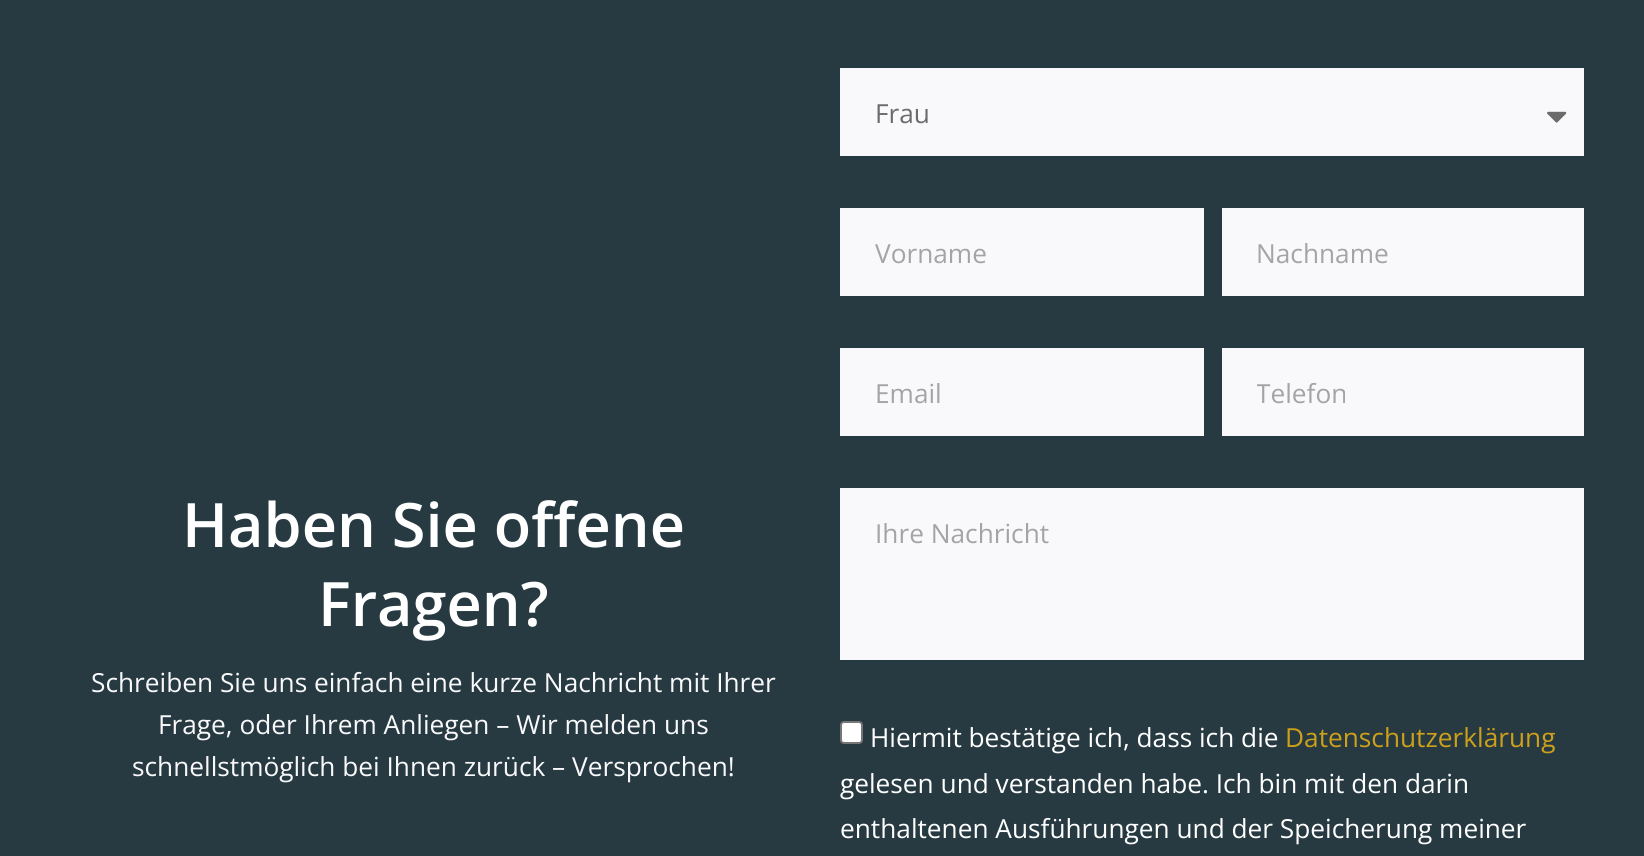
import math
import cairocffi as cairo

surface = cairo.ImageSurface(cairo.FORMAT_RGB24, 1644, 856)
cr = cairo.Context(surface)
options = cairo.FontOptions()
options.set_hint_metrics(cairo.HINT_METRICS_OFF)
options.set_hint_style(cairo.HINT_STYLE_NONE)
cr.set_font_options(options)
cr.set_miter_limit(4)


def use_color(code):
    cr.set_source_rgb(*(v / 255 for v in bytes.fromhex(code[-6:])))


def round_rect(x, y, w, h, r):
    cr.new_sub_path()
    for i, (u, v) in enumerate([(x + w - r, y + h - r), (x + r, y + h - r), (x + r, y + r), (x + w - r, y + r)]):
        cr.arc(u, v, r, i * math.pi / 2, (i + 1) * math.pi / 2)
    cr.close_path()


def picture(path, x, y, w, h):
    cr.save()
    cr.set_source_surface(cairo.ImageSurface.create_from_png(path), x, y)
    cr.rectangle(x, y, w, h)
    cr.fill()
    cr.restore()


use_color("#273a42")
cr.paint()
cr.select_font_face("Open Sans SemiBold")
cr.set_font_size(61.25)
use_color("#ffffff")
cr.move_to(182, 547)
cr.show_text("Haben Sie offene")
cr.move_to(318, 626)
cr.show_text("Fragen?")
cr.select_font_face("Open Sans")
cr.set_font_size(26.25)
use_color("#f9f9fb")
cr.move_to(91, 692)
cr.show_text("Schreiben Sie uns einfach eine kurze Nachricht mit Ihrer")
cr.move_to(158, 734)
cr.show_text("Frage, oder Ihrem Anliegen – Wir melden uns")
cr.move_to(132, 776)
cr.show_text("schnellstmöglich bei Ihnen zurück – Versprochen!")
cr.rectangle(840, 68, 744, 88)
cr.fill()
use_color("#6b6b6b")
cr.move_to(875, 123)
cr.show_text("Frau")
picture("img1.png", 1547, 111, 20, 12)
use_color("#f9f9fb")
cr.rectangle(840, 208, 364, 88)
cr.fill()
use_color("#a4a4a5")
cr.move_to(875, 263)
cr.show_text("Vorname")
use_color("#f9f9fb")
cr.rectangle(1222, 208, 362, 88)
cr.fill()
use_color("#a4a4a5")
cr.move_to(1256, 263)
cr.show_text("Nachname")
use_color("#f9f9fb")
cr.rectangle(840, 348, 364, 88)
cr.fill()
use_color("#a4a4a5")
cr.move_to(875, 403)
cr.show_text("Email")
use_color("#f9f9fb")
cr.rectangle(1222, 348, 362, 88)
cr.fill()
cr.save()
cr.rectangle(1257, 375, 292, 35)
cr.clip()
use_color("#a4a4a5")
cr.move_to(1256, 403)
cr.show_text("Telefon")
cr.restore()
cr.rectangle(840, 488, 744, 172)
cr.fill()
use_color("#a4a4a5")
cr.move_to(875, 543)
cr.show_text("Ihre Nachricht")
use_color("#ffffff")
round_rect(841, 722, 21, 21, 3)
cr.fill_preserve()
use_color("#767676")
cr.stroke()
use_color("#ffffff")
cr.move_to(870, 747)
cr.show_text("Hiermit bestätige ich, dass ich die")
use_color("#cea01a")
cr.move_to(1285, 747)
cr.show_text("Datenschutzerklärung")
use_color("#ffffff")
cr.move_to(840, 793)
cr.show_text("gelesen und verstanden habe. Ich bin mit den darin")
cr.move_to(840, 838)
cr.show_text("enthaltenen Ausführungen und der Speicherung meiner")
surface.write_to_png("result.png")
